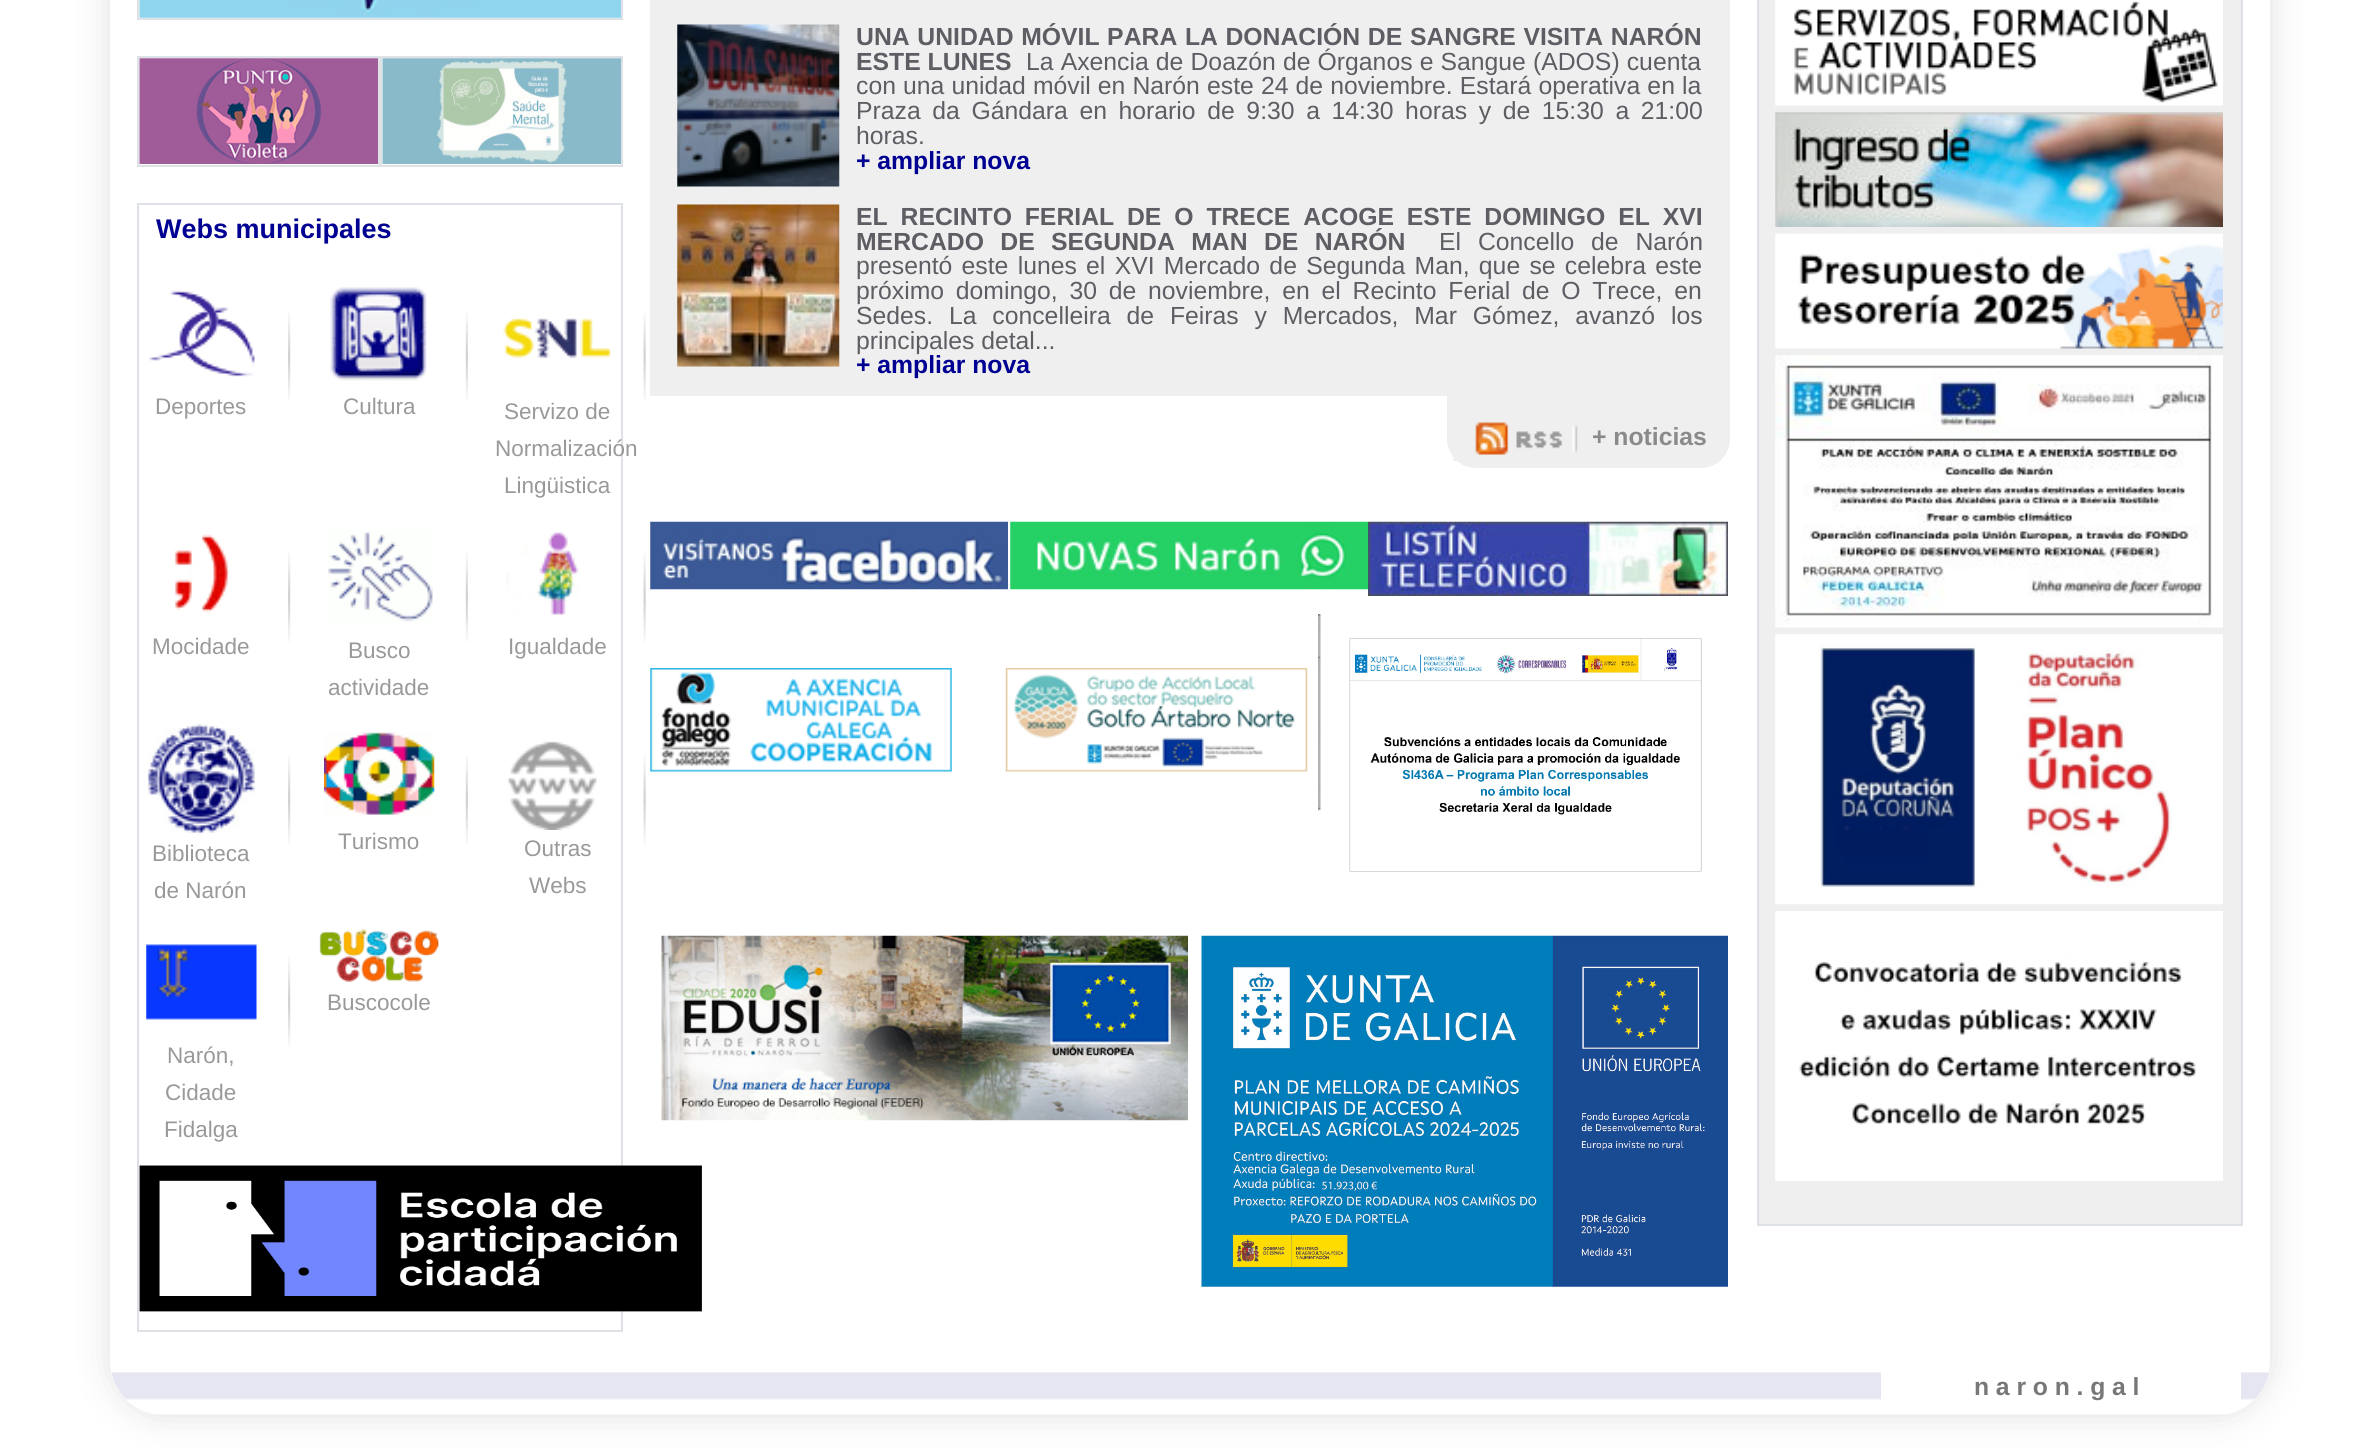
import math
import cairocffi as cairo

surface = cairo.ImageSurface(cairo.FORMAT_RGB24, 2378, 1450)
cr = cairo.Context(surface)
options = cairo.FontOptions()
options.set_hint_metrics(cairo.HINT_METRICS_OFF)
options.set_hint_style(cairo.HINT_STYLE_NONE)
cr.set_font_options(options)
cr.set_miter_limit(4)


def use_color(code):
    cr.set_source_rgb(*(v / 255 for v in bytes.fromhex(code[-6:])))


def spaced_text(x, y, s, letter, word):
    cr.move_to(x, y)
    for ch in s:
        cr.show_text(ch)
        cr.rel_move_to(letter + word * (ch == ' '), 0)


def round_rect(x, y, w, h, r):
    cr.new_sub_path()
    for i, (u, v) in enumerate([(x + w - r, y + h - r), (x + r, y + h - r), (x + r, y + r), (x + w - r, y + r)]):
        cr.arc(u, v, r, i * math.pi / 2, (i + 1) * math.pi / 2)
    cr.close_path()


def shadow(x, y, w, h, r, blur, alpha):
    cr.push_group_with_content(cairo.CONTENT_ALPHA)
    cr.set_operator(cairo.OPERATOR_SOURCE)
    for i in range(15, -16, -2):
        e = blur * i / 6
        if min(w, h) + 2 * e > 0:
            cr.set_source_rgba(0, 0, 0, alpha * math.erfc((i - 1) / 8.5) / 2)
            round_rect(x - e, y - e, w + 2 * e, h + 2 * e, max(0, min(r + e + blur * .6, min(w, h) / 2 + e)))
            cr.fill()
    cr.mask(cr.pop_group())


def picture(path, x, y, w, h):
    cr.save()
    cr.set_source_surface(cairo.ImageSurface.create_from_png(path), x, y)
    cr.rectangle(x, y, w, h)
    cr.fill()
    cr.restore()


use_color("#ffffff")
cr.paint()
cr.save()
cr.rectangle(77, 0, 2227, 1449)
cr.clip()
use_color("#dfdfdf")
shadow(110, -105, 2160, 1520, 54, 17, 1)
cr.restore()
use_color("#ffffff")
cr.new_path()
cr.move_to(110, -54)
cr.line_to(2270, -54)
cr.line_to(2270, 1361)
cr.curve_to(2270, 1391, 2246, 1415, 2216, 1415)
cr.line_to(164, 1415)
cr.curve_to(134, 1415, 110, 1391, 110, 1361)
cr.close_path()
cr.fill()
cr.rectangle(138, -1, 484, 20)
use_color("#dee2e6")
cr.stroke()
picture("img1.png", 139, 0, 482, 18)
cr.rectangle(138, 57, 241, 109)
cr.stroke()
picture("img2.png", 139, 58, 239, 106)
cr.rectangle(381, 57, 241, 109)
cr.stroke()
picture("img3.png", 382, 58, 239, 106)
cr.rectangle(138, 204, 484, 1127)
cr.stroke()
cr.select_font_face("Liberation Sans", cairo.FONT_SLANT_NORMAL, cairo.FONT_WEIGHT_BOLD)
cr.set_font_size(27)
use_color("#000092")
cr.move_to(156, 238)
cr.show_text("Webs municipales")
picture("img4.png", 288, 312, 3, 89)
picture("img5.png", 148, 290, 107, 87)
cr.select_font_face("Liberation Sans")
cr.set_font_size(22.5)
use_color("#999999")
cr.move_to(155, 414)
cr.show_text("Deportes")
picture("img6.png", 465, 312, 3, 89)
picture("img7.png", 330, 287, 97, 94)
cr.move_to(343, 414)
cr.show_text("Cultura")
picture("img8.png", 643, 312, 3, 89)
picture("img9.png", 503, 318, 108, 41)
cr.move_to(504, 419)
cr.show_text("Servizo de")
cr.move_to(495, 456)
cr.show_text("Normalización")
cr.move_to(504, 493)
cr.show_text("Lingüistica")
picture("img10.png", 288, 552, 3, 90)
picture("img11.png", 175, 534, 55, 79)
cr.move_to(152, 654)
cr.show_text("Mocidade")
picture("img12.png", 465, 552, 3, 90)
picture("img13.png", 328, 530, 105, 92)
cr.move_to(348, 658)
cr.show_text("Busco")
cr.move_to(328, 695)
cr.show_text("actividade")
picture("img14.png", 643, 552, 3, 90)
picture("img15.png", 506, 532, 73, 83)
cr.move_to(508, 654)
cr.show_text("Igualdade")
picture("img16.png", 288, 755, 3, 90)
picture("img17.png", 147, 724, 108, 111)
cr.move_to(152, 861)
cr.show_text("Biblioteca")
cr.move_to(154, 898)
cr.show_text("de Narón")
picture("img18.png", 465, 755, 3, 90)
picture("img19.png", 324, 732, 111, 83)
cr.move_to(338, 849)
cr.show_text("Turismo")
picture("img20.png", 643, 755, 3, 90)
picture("img21.png", 508, 741, 89, 89)
cr.move_to(524, 856)
cr.show_text("Outras")
cr.move_to(529, 893)
cr.show_text("Webs")
picture("img22.png", 319, 929, 120, 53)
cr.move_to(327, 1010)
cr.show_text("Buscocole")
picture("img10.png", 288, 957, 3, 90)
picture("img23.png", 146, 944, 111, 76)
cr.move_to(167, 1063)
cr.show_text("Narón,")
cr.move_to(165, 1100)
cr.show_text("Cidade")
cr.move_to(164, 1137)
cr.show_text("Fidalga")
picture("img24.png", 139, 1165, 563, 147)
use_color("#efefef")
cr.rectangle(650, 0, 1080, 396)
cr.fill()
picture("img25.png", 677, 24, 163, 163)
cr.select_font_face("Liberation Sans", cairo.FONT_SLANT_NORMAL, cairo.FONT_WEIGHT_BOLD)
cr.set_font_size(24.75)
use_color("#5e5d63")
spaced_text(856, 45, "UNA UNIDAD MÓVIL PARA LA DONACIÓN DE SANGRE VISITA NARÓN", 0, 0.75)
cr.move_to(856, 70)
cr.show_text("ESTE LUNES")
cr.select_font_face("Liberation Sans")
spaced_text(1026, 70, "La Axencia de Doazón de Órganos e Sangue (ADOS) cuenta", 0, 0.25)
spaced_text(856, 94, "con una unidad móvil en Narón este 24 de noviembre. Estará operativa en la", 0, 0.25)
spaced_text(856, 119, "Praza da Gándara en horario de 9:30 a 14:30 horas y de 15:30 a 21:00", 0, 4.75)
cr.move_to(856, 144)
cr.show_text("horas.")
cr.select_font_face("Liberation Sans", cairo.FONT_SLANT_NORMAL, cairo.FONT_WEIGHT_BOLD)
use_color("#000092")
cr.move_to(856, 169)
cr.show_text("+ ampliar nova")
picture("img26.png", 677, 204, 163, 163)
use_color("#5e5d63")
spaced_text(856, 225, "EL RECINTO FERIAL DE O TRECE ACOGE ESTE DOMINGO EL XVI", 0, 6)
spaced_text(856, 250, "MERCADO DE SEGUNDA MAN DE NARÓN", 0, 9.5)
cr.select_font_face("Liberation Sans")
spaced_text(1439, 250, "El Concello de Narón", 0, 10)
spaced_text(856, 274, "presentó este lunes el XVI Mercado de Segunda Man, que se celebra este", 0, 2.4)
spaced_text(856, 299, "próximo domingo, 30 de noviembre, en el Recinto Ferial de O Trece, en", 0, 4.9)
spaced_text(856, 324, "Sedes. La concelleira de Feiras y Mercados, Mar Gómez, avanzó los", 0, 9)
cr.move_to(856, 349)
cr.show_text("principales detal...")
cr.select_font_face("Liberation Sans", cairo.FONT_SLANT_NORMAL, cairo.FONT_WEIGHT_BOLD)
use_color("#000092")
cr.move_to(856, 373)
cr.show_text("+ ampliar nova")
use_color("#efefef")
cr.new_path()
cr.move_to(1447, 396)
cr.line_to(1584, 396)
cr.line_to(1584, 468)
cr.line_to(1476, 468)
cr.curve_to(1460, 468, 1447, 455, 1447, 439)
cr.close_path()
cr.fill()
picture("img27.png", 1453, 422, 125, 39)
cr.new_path()
cr.move_to(1584, 396)
cr.line_to(1730, 396)
cr.line_to(1730, 439)
cr.curve_to(1730, 455, 1717, 468, 1701, 468)
cr.line_to(1584, 468)
cr.close_path()
cr.fill()
use_color("#8a8a8a")
cr.move_to(1592, 445)
cr.show_text("+ noticias")
picture("img28.png", 650, 521, 358, 69)
picture("img29.png", 1010, 521, 358, 69)
picture("img30.png", 1368, 521, 360, 75)
picture("img31.png", 650, 668, 302, 104)
picture("img32.png", 1005, 668, 303, 104)
picture("img33.png", 1318, 614, 3, 197)
picture("img34.png", 1320, 614, 382, 258)
picture("img35.png", 661, 935, 527, 186)
picture("img36.png", 1201, 935, 527, 352)
use_color("#efefef")
cr.rectangle(1758, -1, 484, 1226)
cr.fill_preserve()
use_color("#dee2e6")
cr.stroke()
picture("img37.png", 1775, 0, 448, 106)
picture("img38.png", 1775, 112, 448, 115)
picture("img39.png", 1775, 233, 448, 116)
picture("img40.png", 1775, 355, 448, 273)
picture("img41.png", 1775, 634, 448, 271)
picture("img42.png", 1775, 911, 448, 270)
picture("img43.png", 111, 1372, 2158, 43)
cr.save()
cr.new_path()
cr.move_to(110, -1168)
cr.line_to(2270, -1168)
cr.line_to(2270, 1361)
cr.curve_to(2270, 1391, 2246, 1415, 2216, 1415)
cr.line_to(164, 1415)
cr.curve_to(134, 1415, 110, 1391, 110, 1361)
cr.close_path()
cr.clip()
use_color("#ffffff")
cr.rectangle(1881, 1368, 360, 45)
cr.fill()
cr.restore()
use_color("#777777")
spaced_text(1974, 1395, "naron.gal", 6.75, 0)
surface.write_to_png("result.png")
